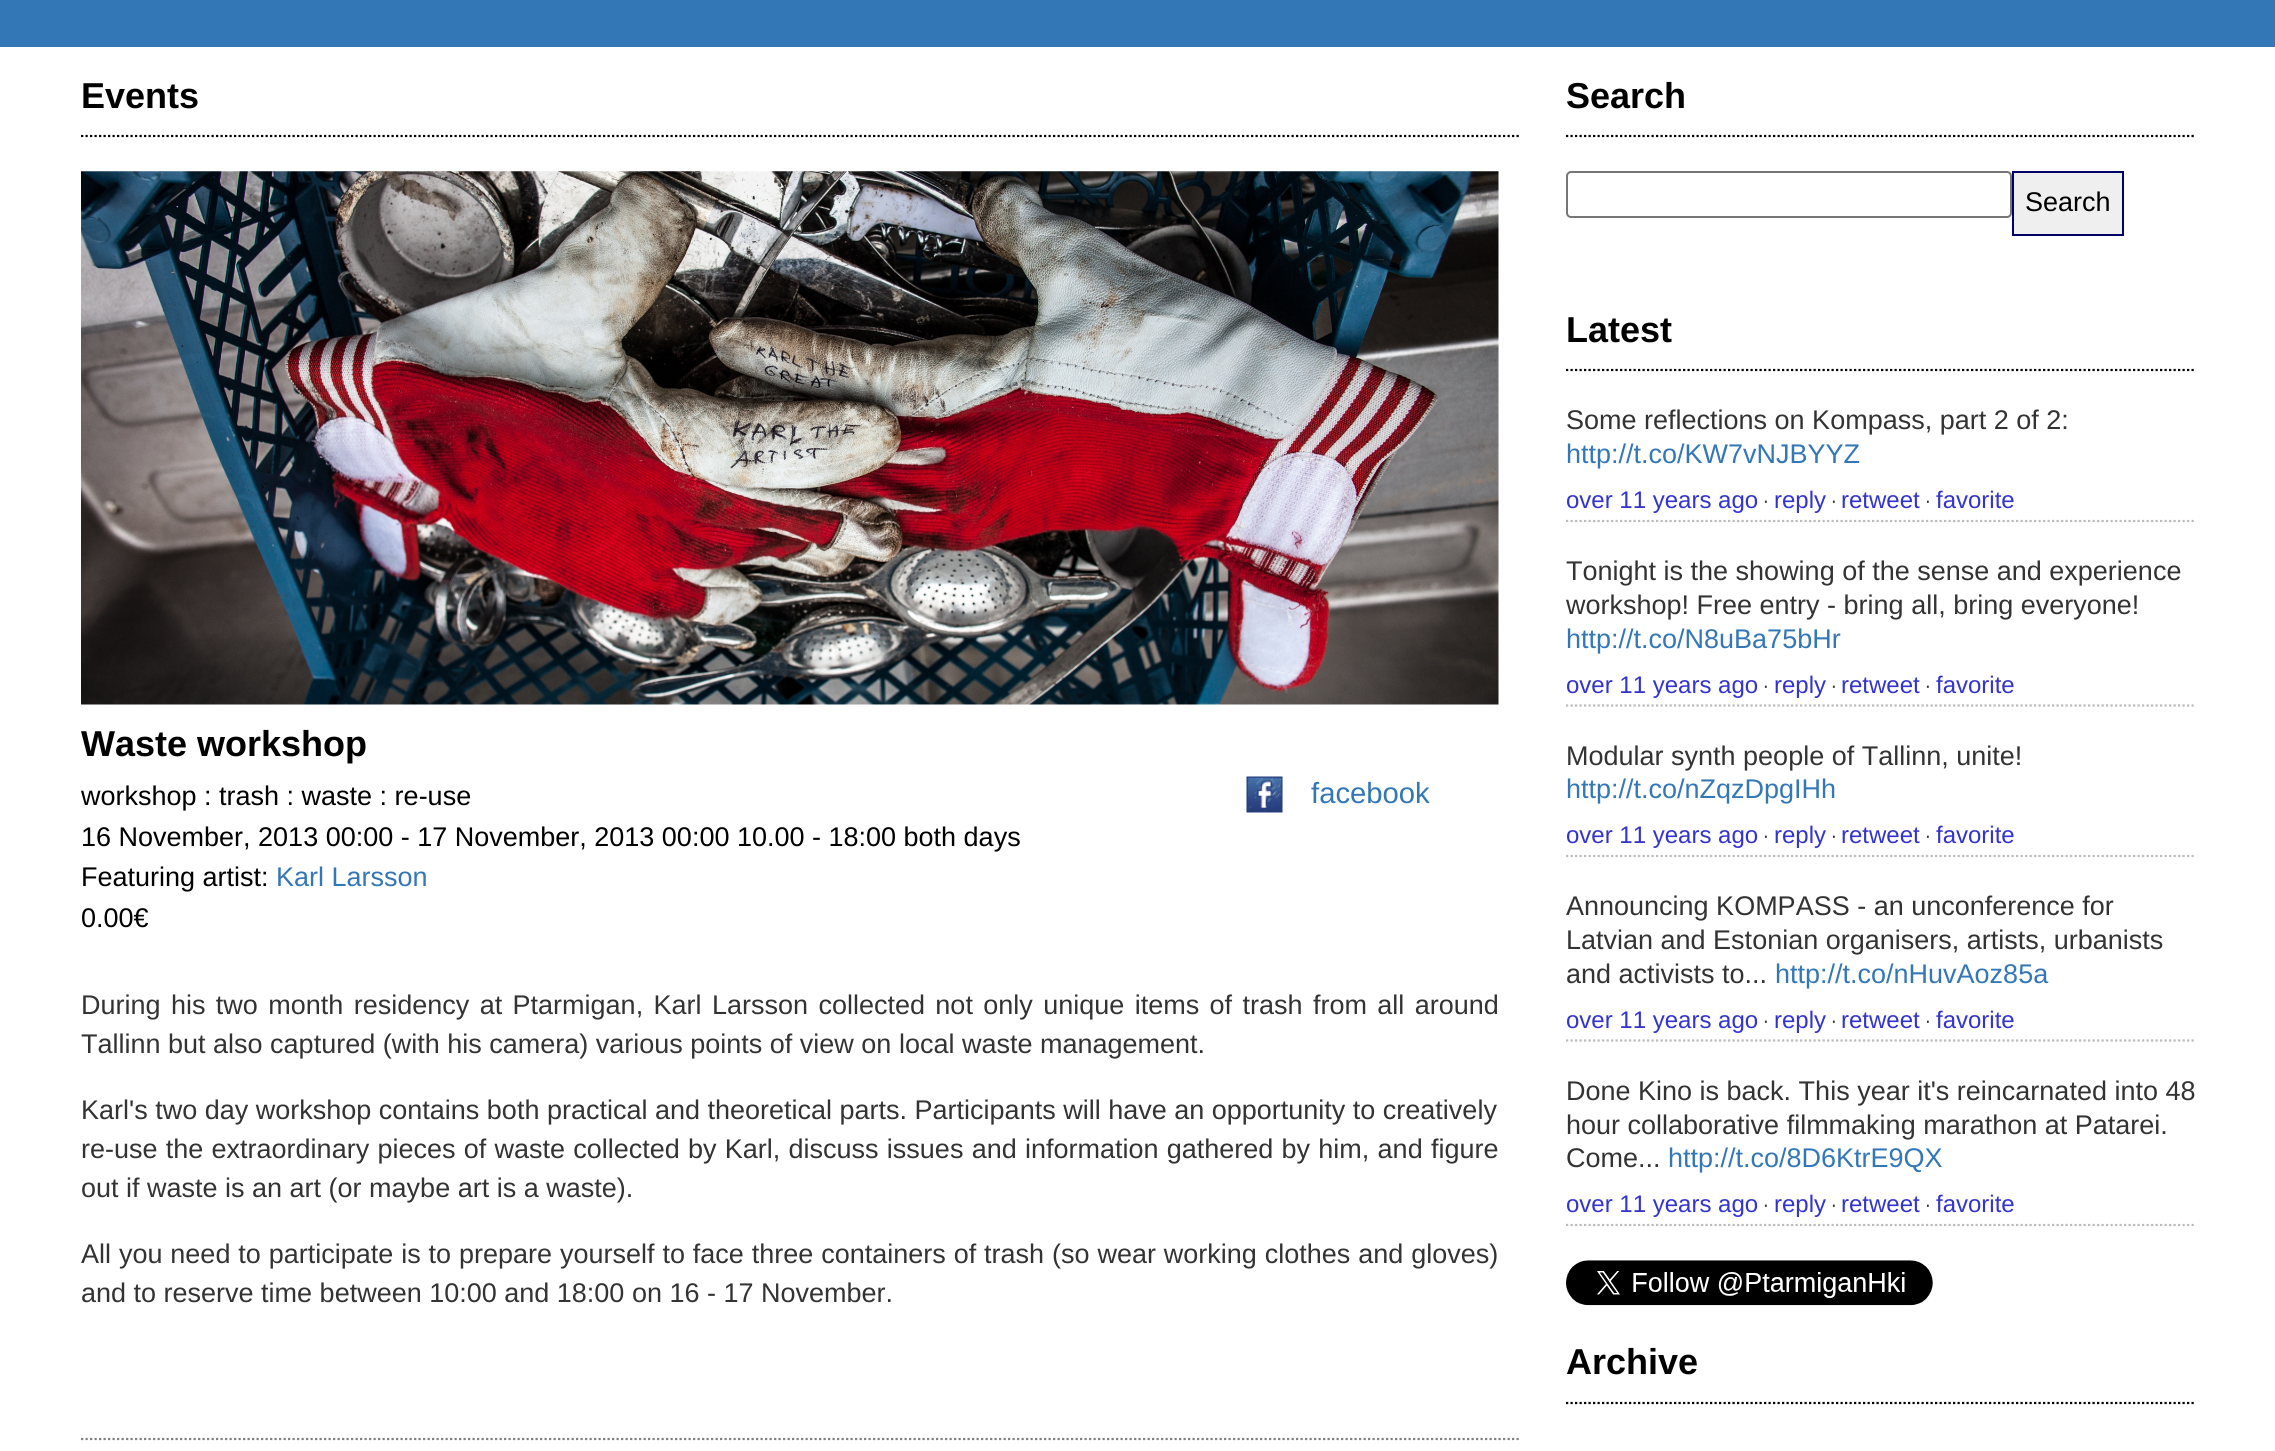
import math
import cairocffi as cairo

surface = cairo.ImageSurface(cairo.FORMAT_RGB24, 2275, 1451)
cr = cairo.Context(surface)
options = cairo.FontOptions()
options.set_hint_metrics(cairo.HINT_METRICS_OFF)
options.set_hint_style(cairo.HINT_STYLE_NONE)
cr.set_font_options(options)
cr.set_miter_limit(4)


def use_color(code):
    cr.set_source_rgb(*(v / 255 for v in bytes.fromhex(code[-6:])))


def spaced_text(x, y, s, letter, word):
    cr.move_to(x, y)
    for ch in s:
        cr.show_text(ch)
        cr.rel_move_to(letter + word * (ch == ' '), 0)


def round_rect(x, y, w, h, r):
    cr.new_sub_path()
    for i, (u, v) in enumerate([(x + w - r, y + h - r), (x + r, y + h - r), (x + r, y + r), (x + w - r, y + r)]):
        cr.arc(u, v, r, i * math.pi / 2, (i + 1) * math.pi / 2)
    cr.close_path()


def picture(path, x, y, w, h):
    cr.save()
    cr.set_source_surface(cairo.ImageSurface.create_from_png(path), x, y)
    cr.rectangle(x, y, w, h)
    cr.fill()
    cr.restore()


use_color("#ffffff")
cr.paint()
use_color("#3477b6")
cr.rectangle(0, 0, 2275, 47)
cr.fill()
cr.new_path()
cr.move_to(81, 136)
cr.line_to(1521, 136)
use_color("#000000")
cr.set_line_width(2.2)
cr.set_dash([2.25, 2.25])
cr.stroke()
cr.select_font_face("Liberation Sans", cairo.FONT_SLANT_NORMAL, cairo.FONT_WEIGHT_BOLD)
cr.set_font_size(36)
cr.move_to(81, 108)
cr.show_text("Events")
cr.new_path()
cr.move_to(81, 1439)
cr.line_to(1521, 1439)
use_color("#808080")
cr.stroke()
picture("img1.png", 81, 171, 1418, 534)
use_color("#000000")
cr.move_to(81, 756)
cr.show_text("Waste workshop")
cr.select_font_face("Liberation Sans")
cr.set_font_size(27)
cr.move_to(81, 805)
cr.show_text("workshop : trash : waste : re-use")
cr.move_to(81, 846)
cr.show_text("16 November, 2013 00:00 - 17 November, 2013 00:00 10.00 - 18:00 both days")
cr.move_to(81, 886)
cr.show_text("Featuring artist:")
use_color("#3477b6")
cr.move_to(276, 886)
cr.show_text("Karl Larsson")
use_color("#000000")
cr.move_to(81, 927)
cr.show_text("0.00€")
picture("img2.png", 1246, 776, 37, 37)
cr.set_font_size(29.25)
use_color("#3477b6")
cr.move_to(1311, 803)
cr.show_text("facebook")
cr.set_font_size(27)
use_color("#333333")
spaced_text(81, 1014, "During his two month residency at Ptarmigan, Karl Larsson collected not only unique items of trash from all around", 0, 2.9)
cr.move_to(81, 1053)
cr.show_text("Tallinn but also captured (with his camera) various points of view on local waste management.")
cr.move_to(81, 1119)
cr.show_text("Karl's two day workshop contains both practical and theoretical parts. Participants will have an opportunity to creatively")
spaced_text(81, 1158, "re-use the extraordinary pieces of waste collected by Karl, discuss issues and information gathered by him, and figure", 0, 0.75)
cr.move_to(81, 1197)
cr.show_text("out if waste is an art (or maybe art is a waste).")
spaced_text(81, 1263, "All you need to participate is to prepare yourself to face three containers of trash (so wear working clothes and gloves)", 0, 0.4)
cr.move_to(81, 1302)
cr.show_text("and to reserve time between 10:00 and 18:00 on 16 - 17 November.")
cr.new_path()
cr.move_to(1566, 136)
cr.line_to(2196, 136)
use_color("#000000")
cr.stroke()
cr.select_font_face("Liberation Sans", cairo.FONT_SLANT_NORMAL, cairo.FONT_WEIGHT_BOLD)
cr.set_font_size(36)
cr.move_to(1566, 108)
cr.show_text("Search")
round_rect(1567, 172, 444, 45, 4)
use_color("#767676")
cr.set_line_width(2)
cr.set_dash([])
cr.stroke()
use_color("#efefef")
cr.rectangle(2013, 172, 110, 63)
cr.fill_preserve()
use_color("#000066")
cr.stroke()
cr.select_font_face("Liberation Sans")
cr.set_font_size(27)
use_color("#000000")
cr.move_to(2025, 211)
cr.show_text("Search")
cr.new_path()
cr.move_to(1566, 370)
cr.line_to(2196, 370)
cr.set_line_width(2.2)
cr.set_dash([2.25, 2.25])
cr.stroke()
cr.select_font_face("Liberation Sans", cairo.FONT_SLANT_NORMAL, cairo.FONT_WEIGHT_BOLD)
cr.set_font_size(36)
cr.move_to(1566, 342)
cr.show_text("Latest")
cr.new_path()
cr.move_to(1566, 521)
cr.line_to(2196, 521)
use_color("#bbbbbb")
cr.stroke()
cr.select_font_face("Liberation Sans")
cr.set_font_size(27)
use_color("#333333")
cr.move_to(1566, 429)
cr.show_text("Some reflections on Kompass, part 2 of 2:")
use_color("#3477b6")
cr.move_to(1566, 463)
cr.show_text("http://t.co/KW7vNJBYYZ")
cr.set_font_size(24)
use_color("#3333cd")
cr.move_to(1566, 508)
cr.show_text("over 11 years ago")
cr.select_font_face("DejaVu Sans")
cr.set_font_size(18)
use_color("#333333")
cr.move_to(1763, 508)
cr.show_text("⋅")
cr.select_font_face("Liberation Sans")
cr.set_font_size(24)
use_color("#3333cd")
cr.move_to(1774, 508)
cr.show_text("reply")
cr.select_font_face("DejaVu Sans")
cr.set_font_size(18)
use_color("#333333")
cr.move_to(1831, 508)
cr.show_text("⋅")
cr.select_font_face("Liberation Sans")
cr.set_font_size(24)
use_color("#3333cd")
cr.move_to(1841, 508)
cr.show_text("retweet")
cr.select_font_face("DejaVu Sans")
cr.set_font_size(18)
use_color("#333333")
cr.move_to(1925, 508)
cr.show_text("⋅")
cr.select_font_face("Liberation Sans")
cr.set_font_size(24)
use_color("#3333cd")
cr.move_to(1936, 508)
cr.show_text("favorite")
cr.new_path()
cr.move_to(1566, 705.5)
cr.line_to(2196, 705.5)
use_color("#bbbbbb")
cr.stroke()
cr.set_font_size(27)
use_color("#333333")
cr.move_to(1566, 580)
cr.show_text("Tonight is the showing of the sense and experience")
cr.move_to(1566, 614)
cr.show_text("workshop! Free entry - bring all, bring everyone!")
use_color("#3477b6")
cr.move_to(1566, 648)
cr.show_text("http://t.co/N8uBa75bHr")
cr.set_font_size(24)
use_color("#3333cd")
cr.move_to(1566, 693)
cr.show_text("over 11 years ago")
cr.select_font_face("DejaVu Sans")
cr.set_font_size(18)
use_color("#333333")
cr.move_to(1763, 693)
cr.show_text("⋅")
cr.select_font_face("Liberation Sans")
cr.set_font_size(24)
use_color("#3333cd")
cr.move_to(1774, 693)
cr.show_text("reply")
cr.select_font_face("DejaVu Sans")
cr.set_font_size(18)
use_color("#333333")
cr.move_to(1831, 693)
cr.show_text("⋅")
cr.select_font_face("Liberation Sans")
cr.set_font_size(24)
use_color("#3333cd")
cr.move_to(1841, 693)
cr.show_text("retweet")
cr.select_font_face("DejaVu Sans")
cr.set_font_size(18)
use_color("#333333")
cr.move_to(1925, 693)
cr.show_text("⋅")
cr.select_font_face("Liberation Sans")
cr.set_font_size(24)
use_color("#3333cd")
cr.move_to(1936, 693)
cr.show_text("favorite")
cr.new_path()
cr.move_to(1566, 856)
cr.line_to(2196, 856)
use_color("#bbbbbb")
cr.stroke()
cr.set_font_size(27)
use_color("#333333")
cr.move_to(1566, 765)
cr.show_text("Modular synth people of Tallinn, unite!")
use_color("#3477b6")
cr.move_to(1566, 798)
cr.show_text("http://t.co/nZqzDpgIHh")
cr.set_font_size(24)
use_color("#3333cd")
cr.move_to(1566, 843)
cr.show_text("over 11 years ago")
cr.select_font_face("DejaVu Sans")
cr.set_font_size(18)
use_color("#333333")
cr.move_to(1763, 843)
cr.show_text("⋅")
cr.select_font_face("Liberation Sans")
cr.set_font_size(24)
use_color("#3333cd")
cr.move_to(1774, 843)
cr.show_text("reply")
cr.select_font_face("DejaVu Sans")
cr.set_font_size(18)
use_color("#333333")
cr.move_to(1831, 843)
cr.show_text("⋅")
cr.select_font_face("Liberation Sans")
cr.set_font_size(24)
use_color("#3333cd")
cr.move_to(1841, 843)
cr.show_text("retweet")
cr.select_font_face("DejaVu Sans")
cr.set_font_size(18)
use_color("#333333")
cr.move_to(1925, 843)
cr.show_text("⋅")
cr.select_font_face("Liberation Sans")
cr.set_font_size(24)
use_color("#3333cd")
cr.move_to(1936, 843)
cr.show_text("favorite")
cr.new_path()
cr.move_to(1566, 1040.5)
cr.line_to(2196, 1040.5)
use_color("#bbbbbb")
cr.stroke()
cr.set_font_size(27)
use_color("#333333")
cr.move_to(1566, 915)
cr.show_text("Announcing KOMPASS - an unconference for")
cr.move_to(1566, 949)
cr.show_text("Latvian and Estonian organisers, artists, urbanists")
cr.move_to(1566, 983)
cr.show_text("and activists to...")
use_color("#3477b6")
cr.move_to(1775, 983)
cr.show_text("http://t.co/nHuvAoz85a")
cr.set_font_size(24)
use_color("#3333cd")
cr.move_to(1566, 1028)
cr.show_text("over 11 years ago")
cr.select_font_face("DejaVu Sans")
cr.set_font_size(18)
use_color("#333333")
cr.move_to(1763, 1028)
cr.show_text("⋅")
cr.select_font_face("Liberation Sans")
cr.set_font_size(24)
use_color("#3333cd")
cr.move_to(1774, 1028)
cr.show_text("reply")
cr.select_font_face("DejaVu Sans")
cr.set_font_size(18)
use_color("#333333")
cr.move_to(1831, 1028)
cr.show_text("⋅")
cr.select_font_face("Liberation Sans")
cr.set_font_size(24)
use_color("#3333cd")
cr.move_to(1841, 1028)
cr.show_text("retweet")
cr.select_font_face("DejaVu Sans")
cr.set_font_size(18)
use_color("#333333")
cr.move_to(1925, 1028)
cr.show_text("⋅")
cr.select_font_face("Liberation Sans")
cr.set_font_size(24)
use_color("#3333cd")
cr.move_to(1936, 1028)
cr.show_text("favorite")
cr.new_path()
cr.move_to(1566, 1225)
cr.line_to(2196, 1225)
use_color("#bbbbbb")
cr.stroke()
cr.set_font_size(27)
use_color("#333333")
cr.move_to(1566, 1100)
cr.show_text("Done Kino is back. This year it's reincarnated into 48")
cr.move_to(1566, 1134)
cr.show_text("hour collaborative filmmaking marathon at Patarei.")
cr.move_to(1566, 1167)
cr.show_text("Come...")
use_color("#3477b6")
cr.move_to(1668, 1167)
cr.show_text("http://t.co/8D6KtrE9QX")
cr.set_font_size(24)
use_color("#3333cd")
cr.move_to(1566, 1212)
cr.show_text("over 11 years ago")
cr.select_font_face("DejaVu Sans")
cr.set_font_size(18)
use_color("#333333")
cr.move_to(1763, 1212)
cr.show_text("⋅")
cr.select_font_face("Liberation Sans")
cr.set_font_size(24)
use_color("#3333cd")
cr.move_to(1774, 1212)
cr.show_text("reply")
cr.select_font_face("DejaVu Sans")
cr.set_font_size(18)
use_color("#333333")
cr.move_to(1831, 1212)
cr.show_text("⋅")
cr.select_font_face("Liberation Sans")
cr.set_font_size(24)
use_color("#3333cd")
cr.move_to(1841, 1212)
cr.show_text("retweet")
cr.select_font_face("DejaVu Sans")
cr.set_font_size(18)
use_color("#333333")
cr.move_to(1925, 1212)
cr.show_text("⋅")
cr.select_font_face("Liberation Sans")
cr.set_font_size(24)
use_color("#3333cd")
cr.move_to(1936, 1212)
cr.show_text("favorite")
picture("img3.png", 1566, 1260, 367, 46)
cr.new_path()
cr.move_to(1566, 1403)
cr.line_to(2196, 1403)
use_color("#000000")
cr.stroke()
cr.select_font_face("Liberation Sans", cairo.FONT_SLANT_NORMAL, cairo.FONT_WEIGHT_BOLD)
cr.set_font_size(36)
cr.move_to(1566, 1374)
cr.show_text("Archive")
surface.write_to_png("result.png")
